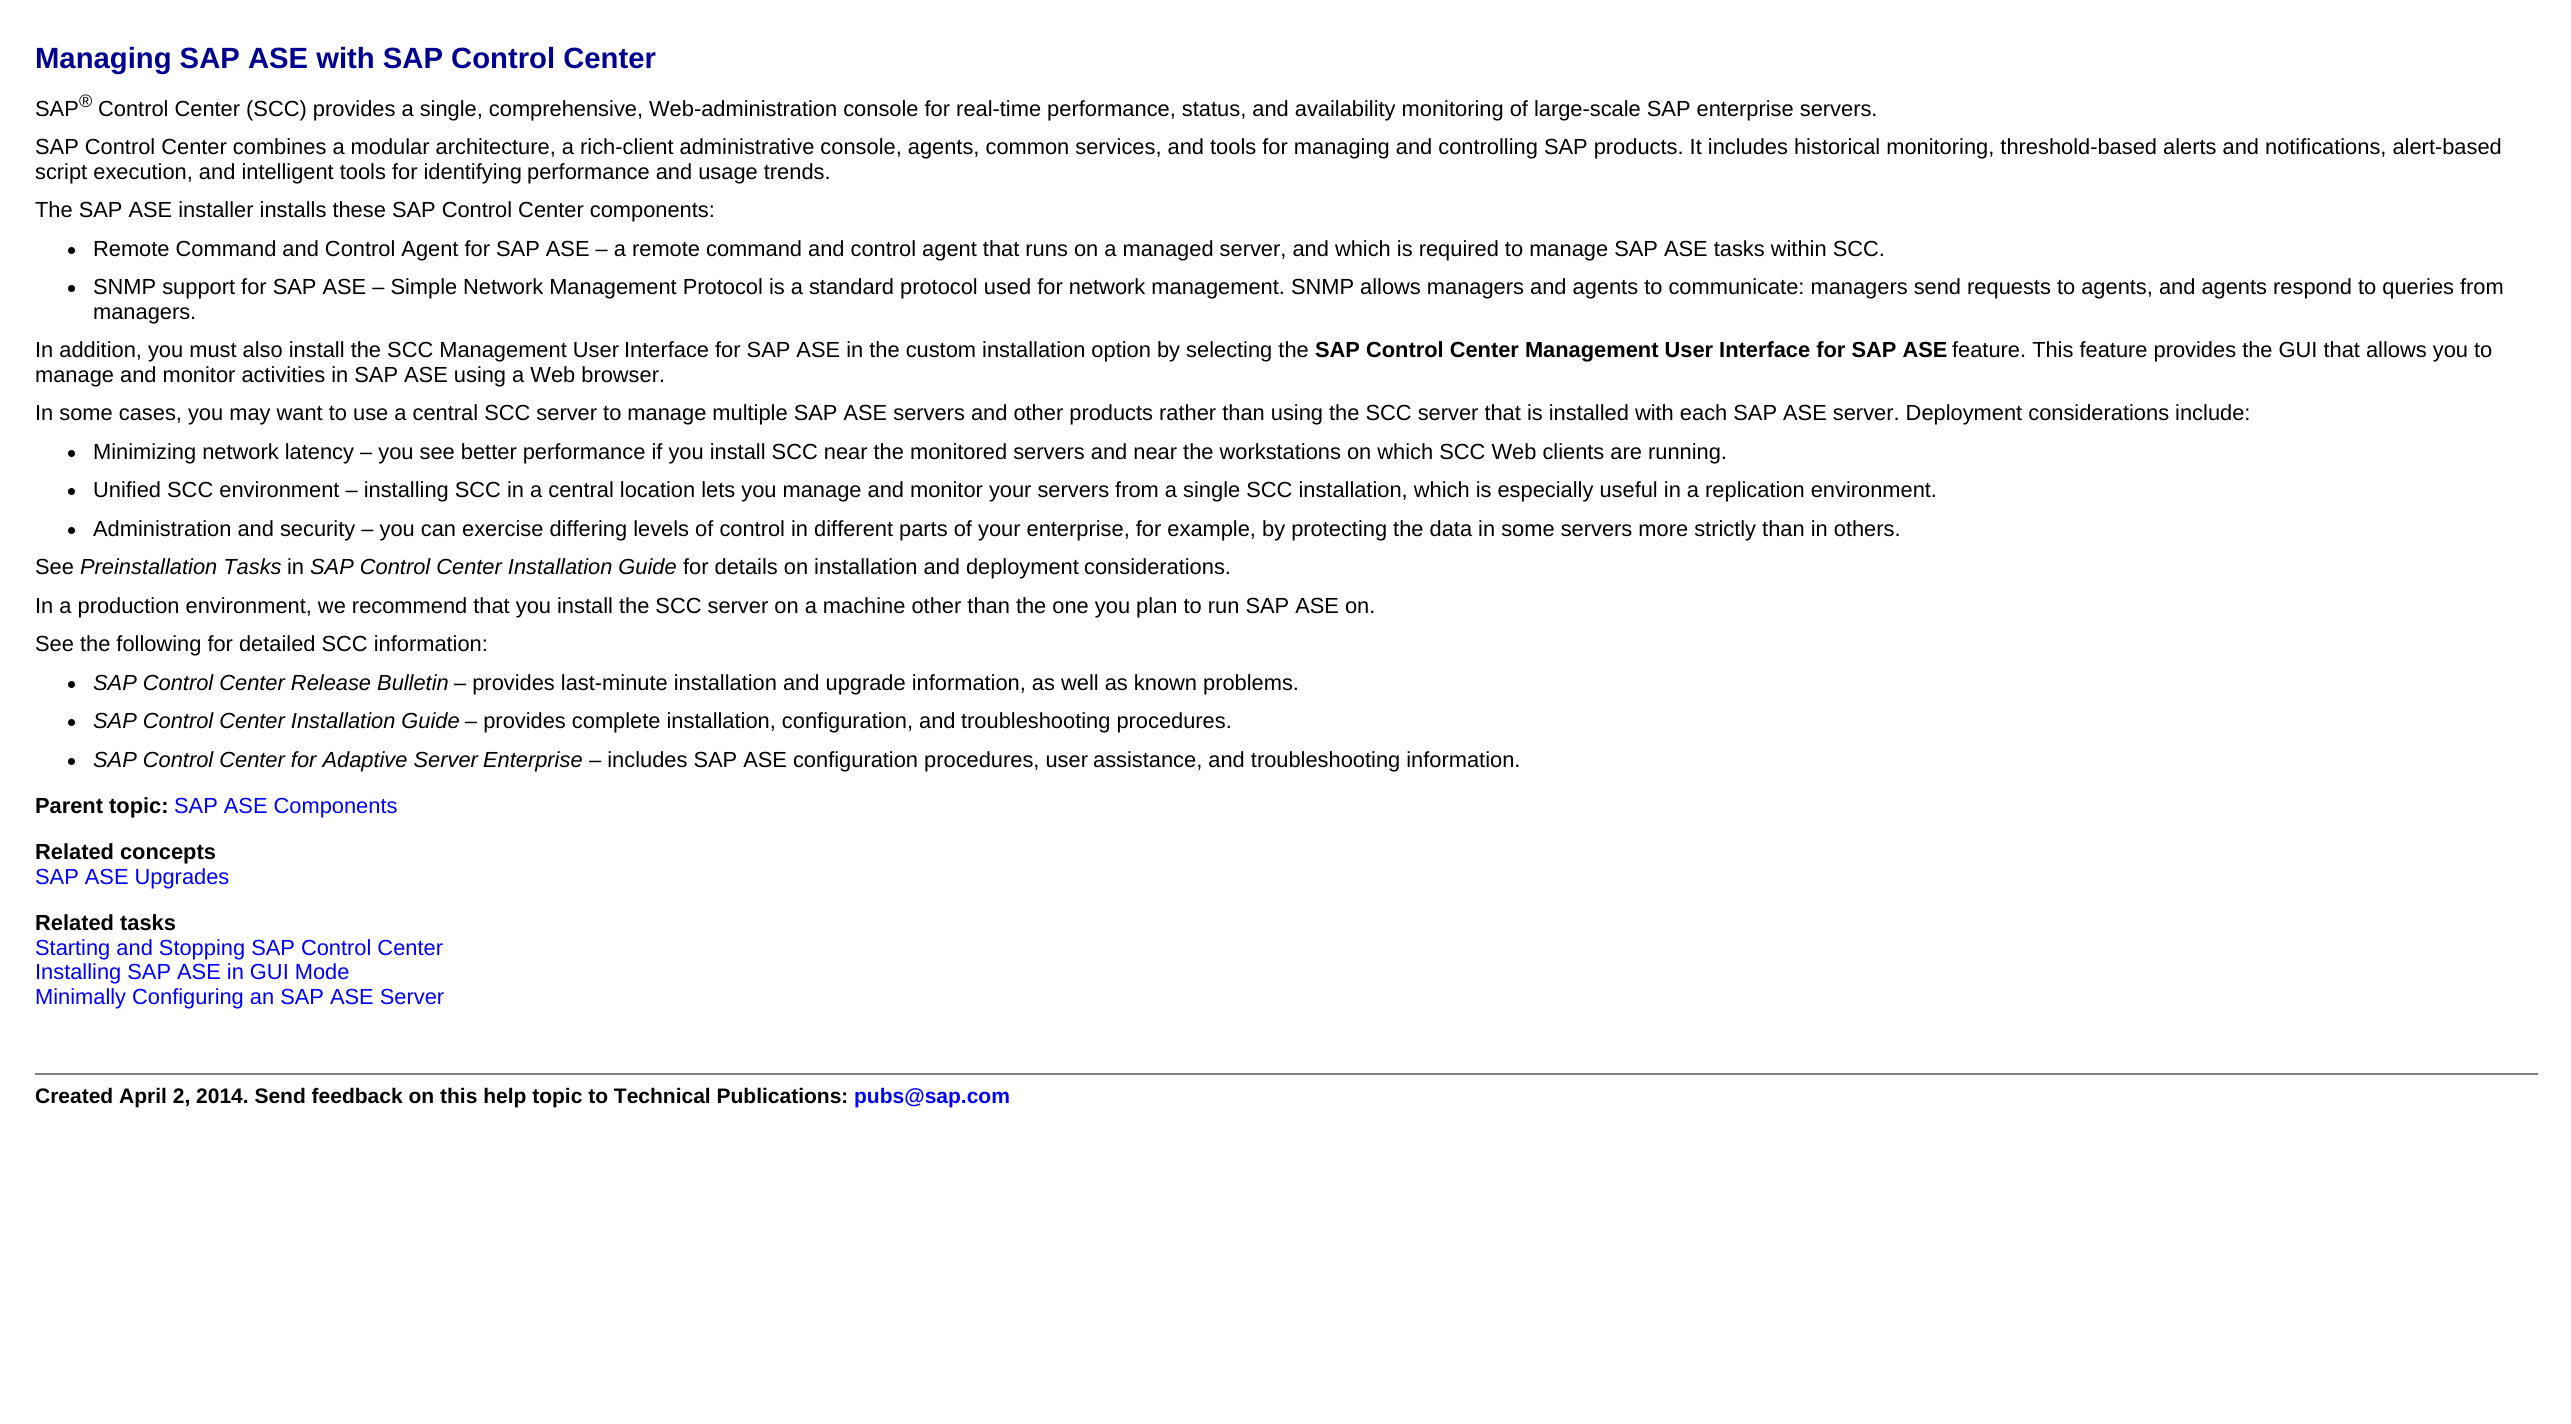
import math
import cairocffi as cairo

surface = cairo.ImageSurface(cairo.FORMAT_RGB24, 2571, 1424)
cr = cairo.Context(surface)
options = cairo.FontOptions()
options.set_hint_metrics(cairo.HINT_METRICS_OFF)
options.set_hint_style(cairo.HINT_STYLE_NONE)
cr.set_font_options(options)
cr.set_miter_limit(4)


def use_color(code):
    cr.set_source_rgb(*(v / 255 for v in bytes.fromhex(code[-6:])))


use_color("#ffffff")
cr.paint()
cr.select_font_face("Liberation Sans", cairo.FONT_SLANT_NORMAL, cairo.FONT_WEIGHT_BOLD)
cr.set_font_size(29.25)
use_color("#000091")
cr.move_to(35, 68)
cr.show_text("Managing SAP ASE with SAP Control Center")
cr.select_font_face("Liberation Sans")
cr.set_font_size(21.84)
use_color("#000000")
cr.move_to(35, 116)
cr.show_text("SAP")
cr.set_font_size(18)
cr.move_to(79, 107)
cr.show_text("®")
cr.set_font_size(21.84)
cr.move_to(98, 116)
cr.show_text("Control Center (SCC) provides a single, comprehensive,")
cr.move_to(649, 116)
cr.show_text("Web-administration console for real-time performance, status, and availability monitoring of large-scale SAP enterprise servers.")
cr.move_to(35, 154)
cr.show_text("SAP Control Center combines a modular architecture, a rich-client administrative console, agents, common services, and tools for managing and controlling SAP products. It includes historical monitoring, threshold-based alerts and notifications, alert-based")
cr.move_to(35, 179)
cr.show_text("script execution, and intelligent tools for identifying")
cr.move_to(527, 179)
cr.show_text("performance and usage trends.")
cr.move_to(35, 217)
cr.show_text("The SAP ASE installer installs these SAP Control Center components:")
cr.new_path()
cr.arc(71.5, 250.5, 3.5, 0, 2 * math.pi)
cr.fill()
cr.move_to(93, 256)
cr.show_text("Remote Command and Control Agent for SAP ASE – a remote command and control agent that runs on a managed server, and which is required to manage SAP ASE tasks within SCC.")
cr.new_path()
cr.arc(71.5, 288.5, 3.5, 0, 2 * math.pi)
cr.fill()
cr.move_to(93, 294)
cr.show_text("SNMP support for SAP ASE – Simple")
cr.move_to(463, 294)
cr.show_text("Network Management Protocol is a standard protocol used for network management. SNMP allows managers and agents to communicate: managers send requests to agents, and agents respond to queries from")
cr.move_to(93, 319)
cr.show_text("managers.")
cr.move_to(35, 357)
cr.show_text("In addition, you must also install the SCC Management User")
cr.move_to(624, 357)
cr.show_text("Interface for SAP ASE in the custom installation option by selecting the")
cr.select_font_face("Liberation Sans", cairo.FONT_SLANT_NORMAL, cairo.FONT_WEIGHT_BOLD)
cr.move_to(1315, 357)
cr.show_text("SAP Control Center Management User Interface for SAP ASE")
cr.select_font_face("Liberation Sans")
cr.move_to(1952, 357)
cr.show_text("feature. This feature provides the GUI that allows you to")
cr.move_to(35, 382)
cr.show_text("manage and monitor activities in SAP ASE using a Web browser.")
cr.move_to(35, 420)
cr.show_text("In some cases, you may want to use a central SCC server to manage multiple SAP ASE servers and other products rather than using the SCC server that is installed with each SAP ASE server. Deployment considerations include:")
cr.new_path()
cr.arc(71.5, 453.5, 3.5, 0, 2 * math.pi)
cr.fill()
cr.move_to(93, 459)
cr.show_text("Minimizing network latency – you see better performance if you install SCC near the monitored servers and near the workstations on which SCC Web clients are running.")
cr.new_path()
cr.arc(71.5, 491.5, 3.5, 0, 2 * math.pi)
cr.fill()
cr.move_to(93, 497)
cr.show_text("Unified SCC environment – installing SCC in a central location lets you manage and monitor your servers from a single SCC installation, which is especially useful in a replication environment.")
cr.new_path()
cr.arc(71.5, 530.5, 3.5, 0, 2 * math.pi)
cr.fill()
cr.move_to(93, 536)
cr.show_text("Administration and security – you can exercise differing levels of control in different parts of your enterprise, for example, by protecting the data in some servers more strictly than in others.")
cr.move_to(35, 574)
cr.show_text("See")
cr.select_font_face("Liberation Sans", cairo.FONT_SLANT_ITALIC)
cr.move_to(80, 574)
cr.show_text("Preinstallation Tasks")
cr.select_font_face("Liberation Sans")
cr.move_to(287, 574)
cr.show_text("in")
cr.select_font_face("Liberation Sans", cairo.FONT_SLANT_ITALIC)
cr.move_to(310, 574)
cr.show_text("SAP Control Center Installation Guide")
cr.select_font_face("Liberation Sans")
cr.move_to(683, 574)
cr.show_text("for details on installation and deployment")
cr.move_to(1084, 574)
cr.show_text("considerations.")
cr.move_to(35, 613)
cr.show_text("In a production environment, we recommend that you install the SCC server on a machine other than the one you plan to run SAP ASE on.")
cr.move_to(35, 651)
cr.show_text("See the following for detailed SCC information:")
cr.new_path()
cr.arc(71.5, 684.5, 3.5, 0, 2 * math.pi)
cr.fill()
cr.select_font_face("Liberation Sans", cairo.FONT_SLANT_ITALIC)
cr.move_to(93, 690)
cr.show_text("SAP Control Center Release Bulletin")
cr.select_font_face("Liberation Sans")
cr.move_to(454, 690)
cr.show_text("– provides last-minute installation and upgrade information, as well as known problems.")
cr.new_path()
cr.arc(71.5, 722.5, 3.5, 0, 2 * math.pi)
cr.fill()
cr.select_font_face("Liberation Sans", cairo.FONT_SLANT_ITALIC)
cr.move_to(93, 728)
cr.show_text("SAP Control Center Installation Guide")
cr.select_font_face("Liberation Sans")
cr.move_to(465, 728)
cr.show_text("– provides complete installation, configuration, and")
cr.move_to(961, 728)
cr.show_text("troubleshooting procedures.")
cr.new_path()
cr.arc(71.5, 761.5, 3.5, 0, 2 * math.pi)
cr.fill()
cr.select_font_face("Liberation Sans", cairo.FONT_SLANT_ITALIC)
cr.move_to(93, 767)
cr.show_text("SAP Control Center for Adaptive Server")
cr.move_to(483, 767)
cr.show_text("Enterprise")
cr.select_font_face("Liberation Sans")
cr.move_to(589, 767)
cr.show_text("– includes SAP ASE configuration procedures, user")
cr.move_to(1093, 767)
cr.show_text("assistance, and troubleshooting information.")
cr.select_font_face("Liberation Sans", cairo.FONT_SLANT_NORMAL, cairo.FONT_WEIGHT_BOLD)
cr.move_to(35, 813)
cr.show_text("Parent topic:")
cr.select_font_face("Liberation Sans")
use_color("#0000ff")
cr.move_to(174, 813)
cr.show_text("SAP ASE Components")
cr.select_font_face("Liberation Sans", cairo.FONT_SLANT_NORMAL, cairo.FONT_WEIGHT_BOLD)
use_color("#000000")
cr.move_to(35, 859)
cr.show_text("Related concepts")
cr.select_font_face("Liberation Sans")
use_color("#0000ff")
cr.move_to(35, 884)
cr.show_text("SAP ASE Upgrades")
cr.select_font_face("Liberation Sans", cairo.FONT_SLANT_NORMAL, cairo.FONT_WEIGHT_BOLD)
use_color("#000000")
cr.move_to(35, 930)
cr.show_text("Related tasks")
cr.select_font_face("Liberation Sans")
use_color("#0000ff")
cr.move_to(35, 955)
cr.show_text("Starting and Stopping SAP Control Center")
cr.move_to(35, 979)
cr.show_text("Installing SAP ASE in GUI Mode")
cr.move_to(35, 1004)
cr.show_text("Minimally Configuring an SAP ASE Server")
use_color("#808080")
cr.rectangle(35, 1073, 2503, 2)
cr.fill()
cr.select_font_face("Liberation Sans", cairo.FONT_SLANT_NORMAL, cairo.FONT_WEIGHT_BOLD)
cr.set_font_size(21)
use_color("#000000")
cr.move_to(35, 1103)
cr.show_text("Created April 2, 2014. Send feedback on this help topic to Technical Publications:")
use_color("#0000ff")
cr.move_to(854, 1103)
cr.show_text("pubs@sap.com")
surface.write_to_png("result.png")
